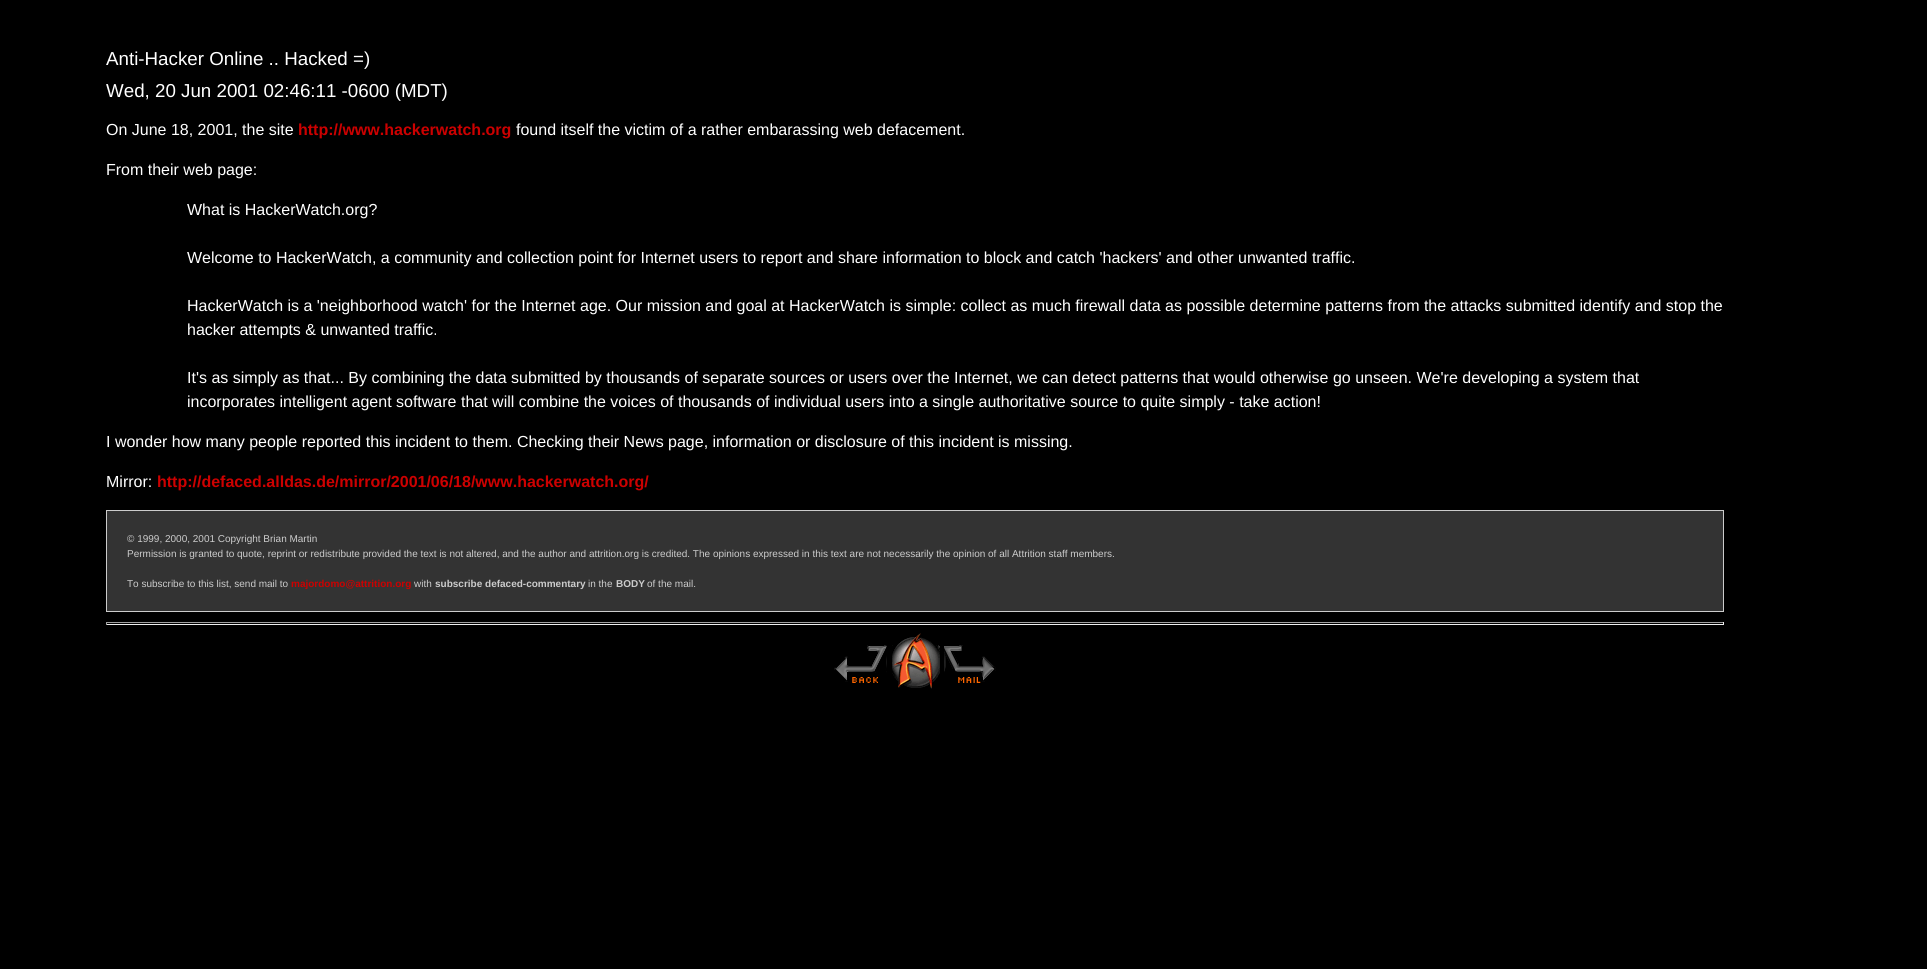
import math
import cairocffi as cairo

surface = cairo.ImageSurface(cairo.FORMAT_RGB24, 1927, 969)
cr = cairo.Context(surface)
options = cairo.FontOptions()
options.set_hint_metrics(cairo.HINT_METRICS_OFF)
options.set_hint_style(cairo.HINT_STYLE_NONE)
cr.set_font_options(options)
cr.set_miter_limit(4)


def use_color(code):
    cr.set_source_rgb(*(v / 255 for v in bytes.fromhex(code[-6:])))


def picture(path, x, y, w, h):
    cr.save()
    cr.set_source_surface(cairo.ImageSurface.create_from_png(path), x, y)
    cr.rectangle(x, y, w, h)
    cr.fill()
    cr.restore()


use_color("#000000")
cr.paint()
cr.select_font_face("Liberation Sans")
cr.set_font_size(18.75)
use_color("#ffffff")
cr.move_to(106, 65)
cr.show_text("Anti-Hacker Online .. Hacked =)")
cr.move_to(106, 97)
cr.show_text("Wed, 20 Jun 2001 02:46:11 -0600 (MDT)")
cr.set_font_size(16)
cr.move_to(106, 135)
cr.show_text("On June 18, 2001, the site")
cr.select_font_face("Liberation Sans", cairo.FONT_SLANT_NORMAL, cairo.FONT_WEIGHT_BOLD)
use_color("#cc0000")
cr.move_to(298, 135)
cr.show_text("http://www.hackerwatch.org")
cr.select_font_face("Liberation Sans")
use_color("#ffffff")
cr.move_to(516, 135)
cr.show_text("found itself the victim of a rather embarassing web defacement.")
cr.move_to(106, 175)
cr.show_text("From their web page:")
cr.move_to(187, 215)
cr.show_text("What is HackerWatch.org?")
cr.move_to(187, 263)
cr.show_text("Welcome to HackerWatch, a community and collection point for Internet users to report and share information to block and catch 'hackers' and other unwanted traffic.")
cr.move_to(187, 311)
cr.show_text("HackerWatch is a 'neighborhood watch' for the Internet age. Our mission and goal at HackerWatch is simple: collect as much firewall data as possible determine patterns from the attacks submitted identify and stop the")
cr.move_to(187, 335)
cr.show_text("hacker attempts & unwanted traffic.")
cr.move_to(187, 383)
cr.show_text("It's as simply as that... By combining the data submitted by thousands of separate sources or users over the Internet, we can detect patterns that would otherwise go unseen. We're developing a system that")
cr.move_to(187, 407)
cr.show_text("incorporates intelligent agent software that will combine the voices of thousands of individual users into a single authoritative source to quite simply - take action!")
cr.move_to(106, 447)
cr.show_text("I wonder how many people reported this incident to them. Checking their News page, information or disclosure of this incident is missing.")
cr.move_to(106, 487)
cr.show_text("Mirror:")
cr.select_font_face("Liberation Sans", cairo.FONT_SLANT_NORMAL, cairo.FONT_WEIGHT_BOLD)
use_color("#cc0000")
cr.move_to(157, 487)
cr.show_text("http://defaced.alldas.de/mirror/2001/06/18/www.hackerwatch.org/")
use_color("#333333")
cr.rectangle(106.5, 510.5, 1617, 101)
cr.fill_preserve()
use_color("#cccccc")
cr.set_line_width(1)
cr.stroke()
cr.select_font_face("Liberation Sans")
cr.set_font_size(10)
cr.move_to(127, 542)
cr.show_text("© 1999, 2000, 2001 Copyright Brian Martin")
cr.move_to(127, 557)
cr.show_text("Permission is granted to quote, reprint or redistribute provided the text is not altered, and the author and attrition.org is credited. The opinions expressed in this text are not necessarily the opinion of all Attrition staff members.")
cr.move_to(127, 587)
cr.show_text("To subscribe to this list, send mail to")
cr.select_font_face("Liberation Sans", cairo.FONT_SLANT_NORMAL, cairo.FONT_WEIGHT_BOLD)
use_color("#cc0000")
cr.move_to(291, 587)
cr.show_text("majordomo@attrition.org")
cr.select_font_face("Liberation Sans")
use_color("#cccccc")
cr.move_to(414, 587)
cr.show_text("with")
cr.select_font_face("Liberation Sans", cairo.FONT_SLANT_NORMAL, cairo.FONT_WEIGHT_BOLD)
cr.move_to(435, 587)
cr.show_text("subscribe defaced-commentary")
cr.select_font_face("Liberation Sans")
cr.move_to(588, 587)
cr.show_text("in the")
cr.select_font_face("Liberation Sans", cairo.FONT_SLANT_NORMAL, cairo.FONT_WEIGHT_BOLD)
cr.move_to(616, 587)
cr.show_text("BODY")
cr.select_font_face("Liberation Sans")
cr.move_to(647, 587)
cr.show_text("of the mail.")
use_color("#9f9f9f")
cr.rectangle(106, 622, 1618, 1)
cr.fill()
use_color("#eeeeee")
cr.rectangle(1723, 622, 1, 3)
cr.fill()
cr.rectangle(106, 624, 1618, 1)
cr.fill()
use_color("#9f9f9f")
cr.rectangle(106, 622, 1, 3)
cr.fill()
picture("img1.png", 834, 645, 53, 38)
picture("img2.png", 892, 633, 48, 56)
picture("img3.png", 944, 645, 52, 38)
surface.write_to_png("result.png")
